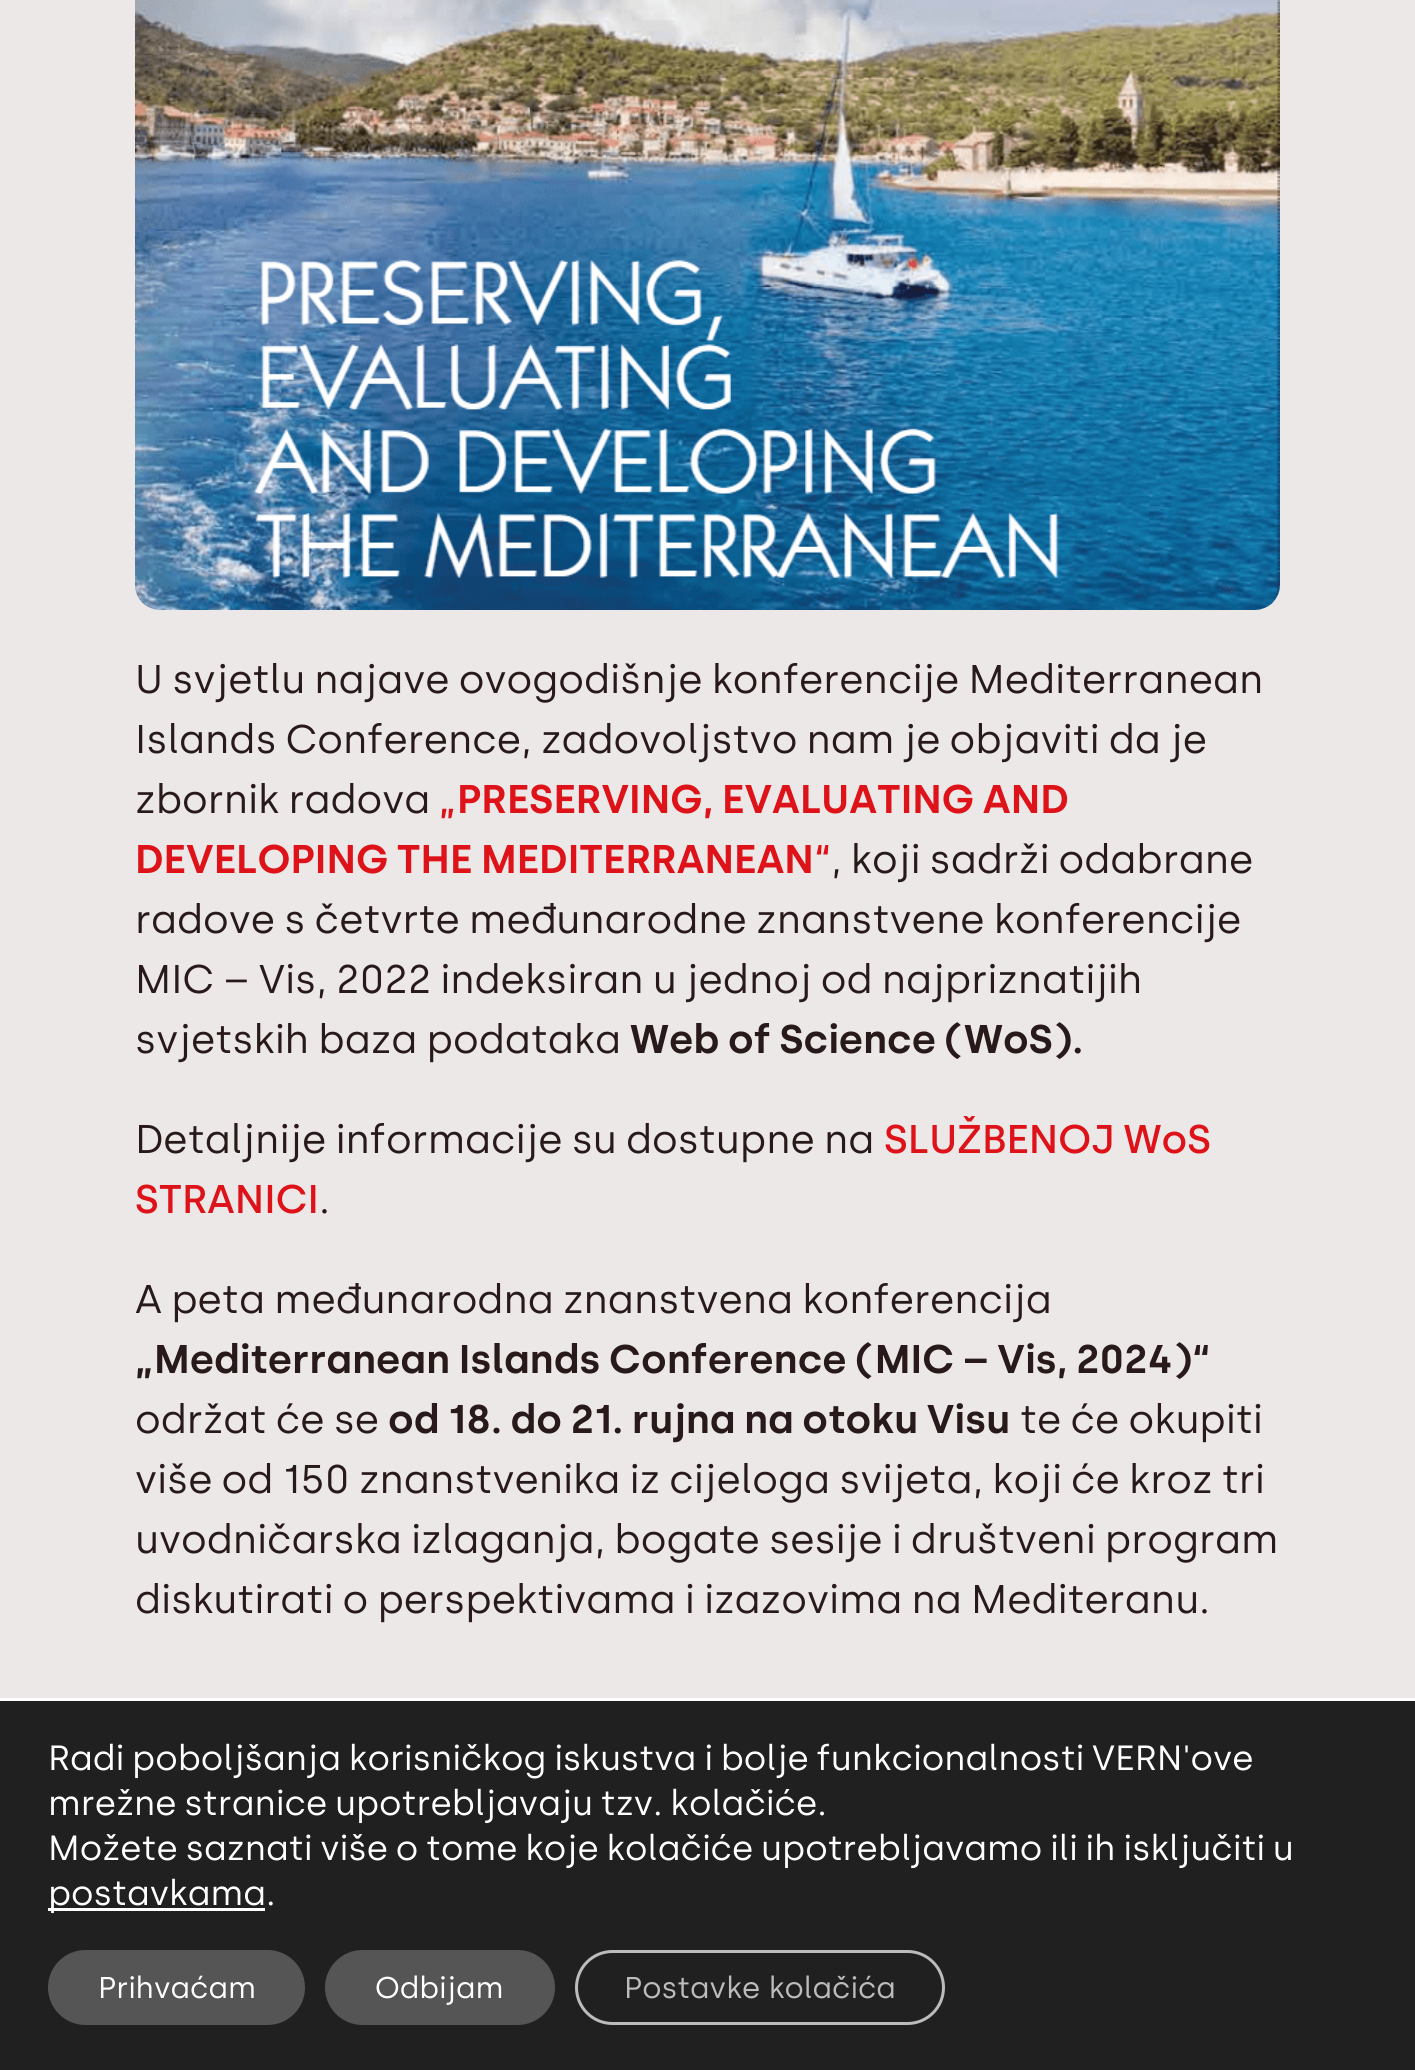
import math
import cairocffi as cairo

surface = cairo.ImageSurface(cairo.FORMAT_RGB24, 1415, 2070)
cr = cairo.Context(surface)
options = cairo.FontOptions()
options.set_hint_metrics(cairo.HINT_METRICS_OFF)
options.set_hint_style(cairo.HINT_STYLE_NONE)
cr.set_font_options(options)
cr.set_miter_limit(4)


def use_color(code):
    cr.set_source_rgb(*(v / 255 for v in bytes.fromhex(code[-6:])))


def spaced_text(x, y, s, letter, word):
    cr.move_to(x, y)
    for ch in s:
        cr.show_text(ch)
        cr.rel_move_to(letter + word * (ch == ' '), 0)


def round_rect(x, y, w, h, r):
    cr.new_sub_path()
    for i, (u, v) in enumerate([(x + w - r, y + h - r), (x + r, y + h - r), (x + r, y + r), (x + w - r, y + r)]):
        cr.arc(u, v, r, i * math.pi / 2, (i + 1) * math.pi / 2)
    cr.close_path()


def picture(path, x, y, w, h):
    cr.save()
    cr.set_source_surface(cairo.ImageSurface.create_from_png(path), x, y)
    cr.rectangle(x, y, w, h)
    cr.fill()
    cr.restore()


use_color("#ede8e8")
cr.paint()
picture("img1.png", 135, 0, 1145, 610)
cr.select_font_face("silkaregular")
cr.set_font_size(40)
use_color("#281a1a")
spaced_text(135, 693, "U svjetlu najave ovogodišnje konferencije Mediterranean", 0, -2)
spaced_text(135, 753, "Islands Conference, zadovoljstvo nam je objaviti da je", 0, -2)
spaced_text(135, 813, "zbornik radova", 0, -2)
cr.select_font_face("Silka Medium")
use_color("#de1219")
cr.move_to(439, 813)
cr.show_text("„")
cr.select_font_face("Silka SemiBold")
spaced_text(457, 813, "PRESERVING, EVALUATING AND", 0, -2)
spaced_text(135, 873, "DEVELOPING THE MEDITERRANEAN", 0, -2)
cr.select_font_face("Silka Medium")
cr.move_to(814, 873)
cr.show_text("“")
cr.select_font_face("silkaregular")
use_color("#281a1a")
spaced_text(831, 873, ", koji sadrži odabrane", 0, -2)
spaced_text(135, 933, "radove s četvrte međunarodne znanstvene konferencije", 0, -2)
spaced_text(135, 993, "MIC – Vis, 2022 indeksiran u jednoj od najpriznatijih", 0, -2)
spaced_text(135, 1053, "svjetskih baza podataka", 0, -2)
cr.select_font_face("Silka SemiBold")
spaced_text(630, 1053, "Web of Science (WoS).", 0, -2)
cr.select_font_face("silkaregular")
spaced_text(135, 1153, "Detaljnije informacije su dostupne na", 0, -2)
cr.select_font_face("Silka Medium")
use_color("#de1219")
spaced_text(884, 1153, "SLUŽBENOJ WoS", 0, -2)
cr.move_to(135, 1213)
cr.show_text("STRANICI")
cr.select_font_face("silkaregular")
use_color("#281a1a")
cr.move_to(319, 1213)
cr.show_text(".")
spaced_text(135, 1313, "A peta međunarodna znanstvena konferencija", 0, -2)
cr.select_font_face("Silka SemiBold")
spaced_text(154, 1373, "Mediterranean Islands Conference (MIC – Vis, 2024)", 0, -2)
cr.move_to(1192, 1373)
cr.show_text("“")
cr.move_to(135, 1373)
cr.show_text("„")
cr.select_font_face("silkaregular")
spaced_text(135, 1433, "održat će se", 0, -2)
cr.select_font_face("Silka SemiBold")
spaced_text(388, 1433, "od 18. do 21. rujna na otoku Visu", 0, -2)
cr.select_font_face("silkaregular")
spaced_text(1020, 1433, "te će okupiti", 0, -2)
spaced_text(135, 1493, "više od 150 znanstvenika iz cijeloga svijeta, koji će kroz tri", 0, -2)
spaced_text(135, 1553, "uvodničarska izlaganja, bogate sesije i društveni program", 0, -2)
spaced_text(135, 1613, "diskutirati o perspektivama i izazovima na Mediteranu.", 0, -2)
use_color("#202020")
cr.rectangle(0, 1701, 1415, 369)
cr.fill()
use_color("#ffffff")
cr.rectangle(0, 1698, 1415, 3)
cr.fill()
cr.set_font_size(35)
spaced_text(48, 1770, "Radi poboljšanja korisničkog iskustva i bolje funkcionalnosti VERN'ove", 0, -2)
spaced_text(48, 1815, "mrežne stranice upotrebljavaju tzv. kolačiće.", 0, -2)
spaced_text(48, 1860, "Možete saznati više o tome koje kolačiće upotrebljavamo ili ih isključiti u", 0, -2)
cr.rectangle(48, 1908, 217, 3)
cr.fill()
cr.move_to(48, 1905)
cr.show_text("postavkama.")
use_color("#555555")
round_rect(48, 1950, 257, 75, 37.5)
cr.fill()
cr.set_font_size(30)
use_color("#ffffff")
cr.move_to(98, 1998)
cr.show_text("Prihvaćam")
use_color("#555555")
round_rect(325, 1950, 230, 75, 37.5)
cr.fill()
use_color("#ffffff")
cr.move_to(375, 1998)
cr.show_text("Odbijam")
round_rect(576.5, 1951.5, 367, 72, 36)
use_color("#bcbcbc")
cr.set_line_width(3)
cr.stroke()
cr.move_to(624, 1998)
cr.show_text("Postavke kolačića")
surface.write_to_png("result.png")
